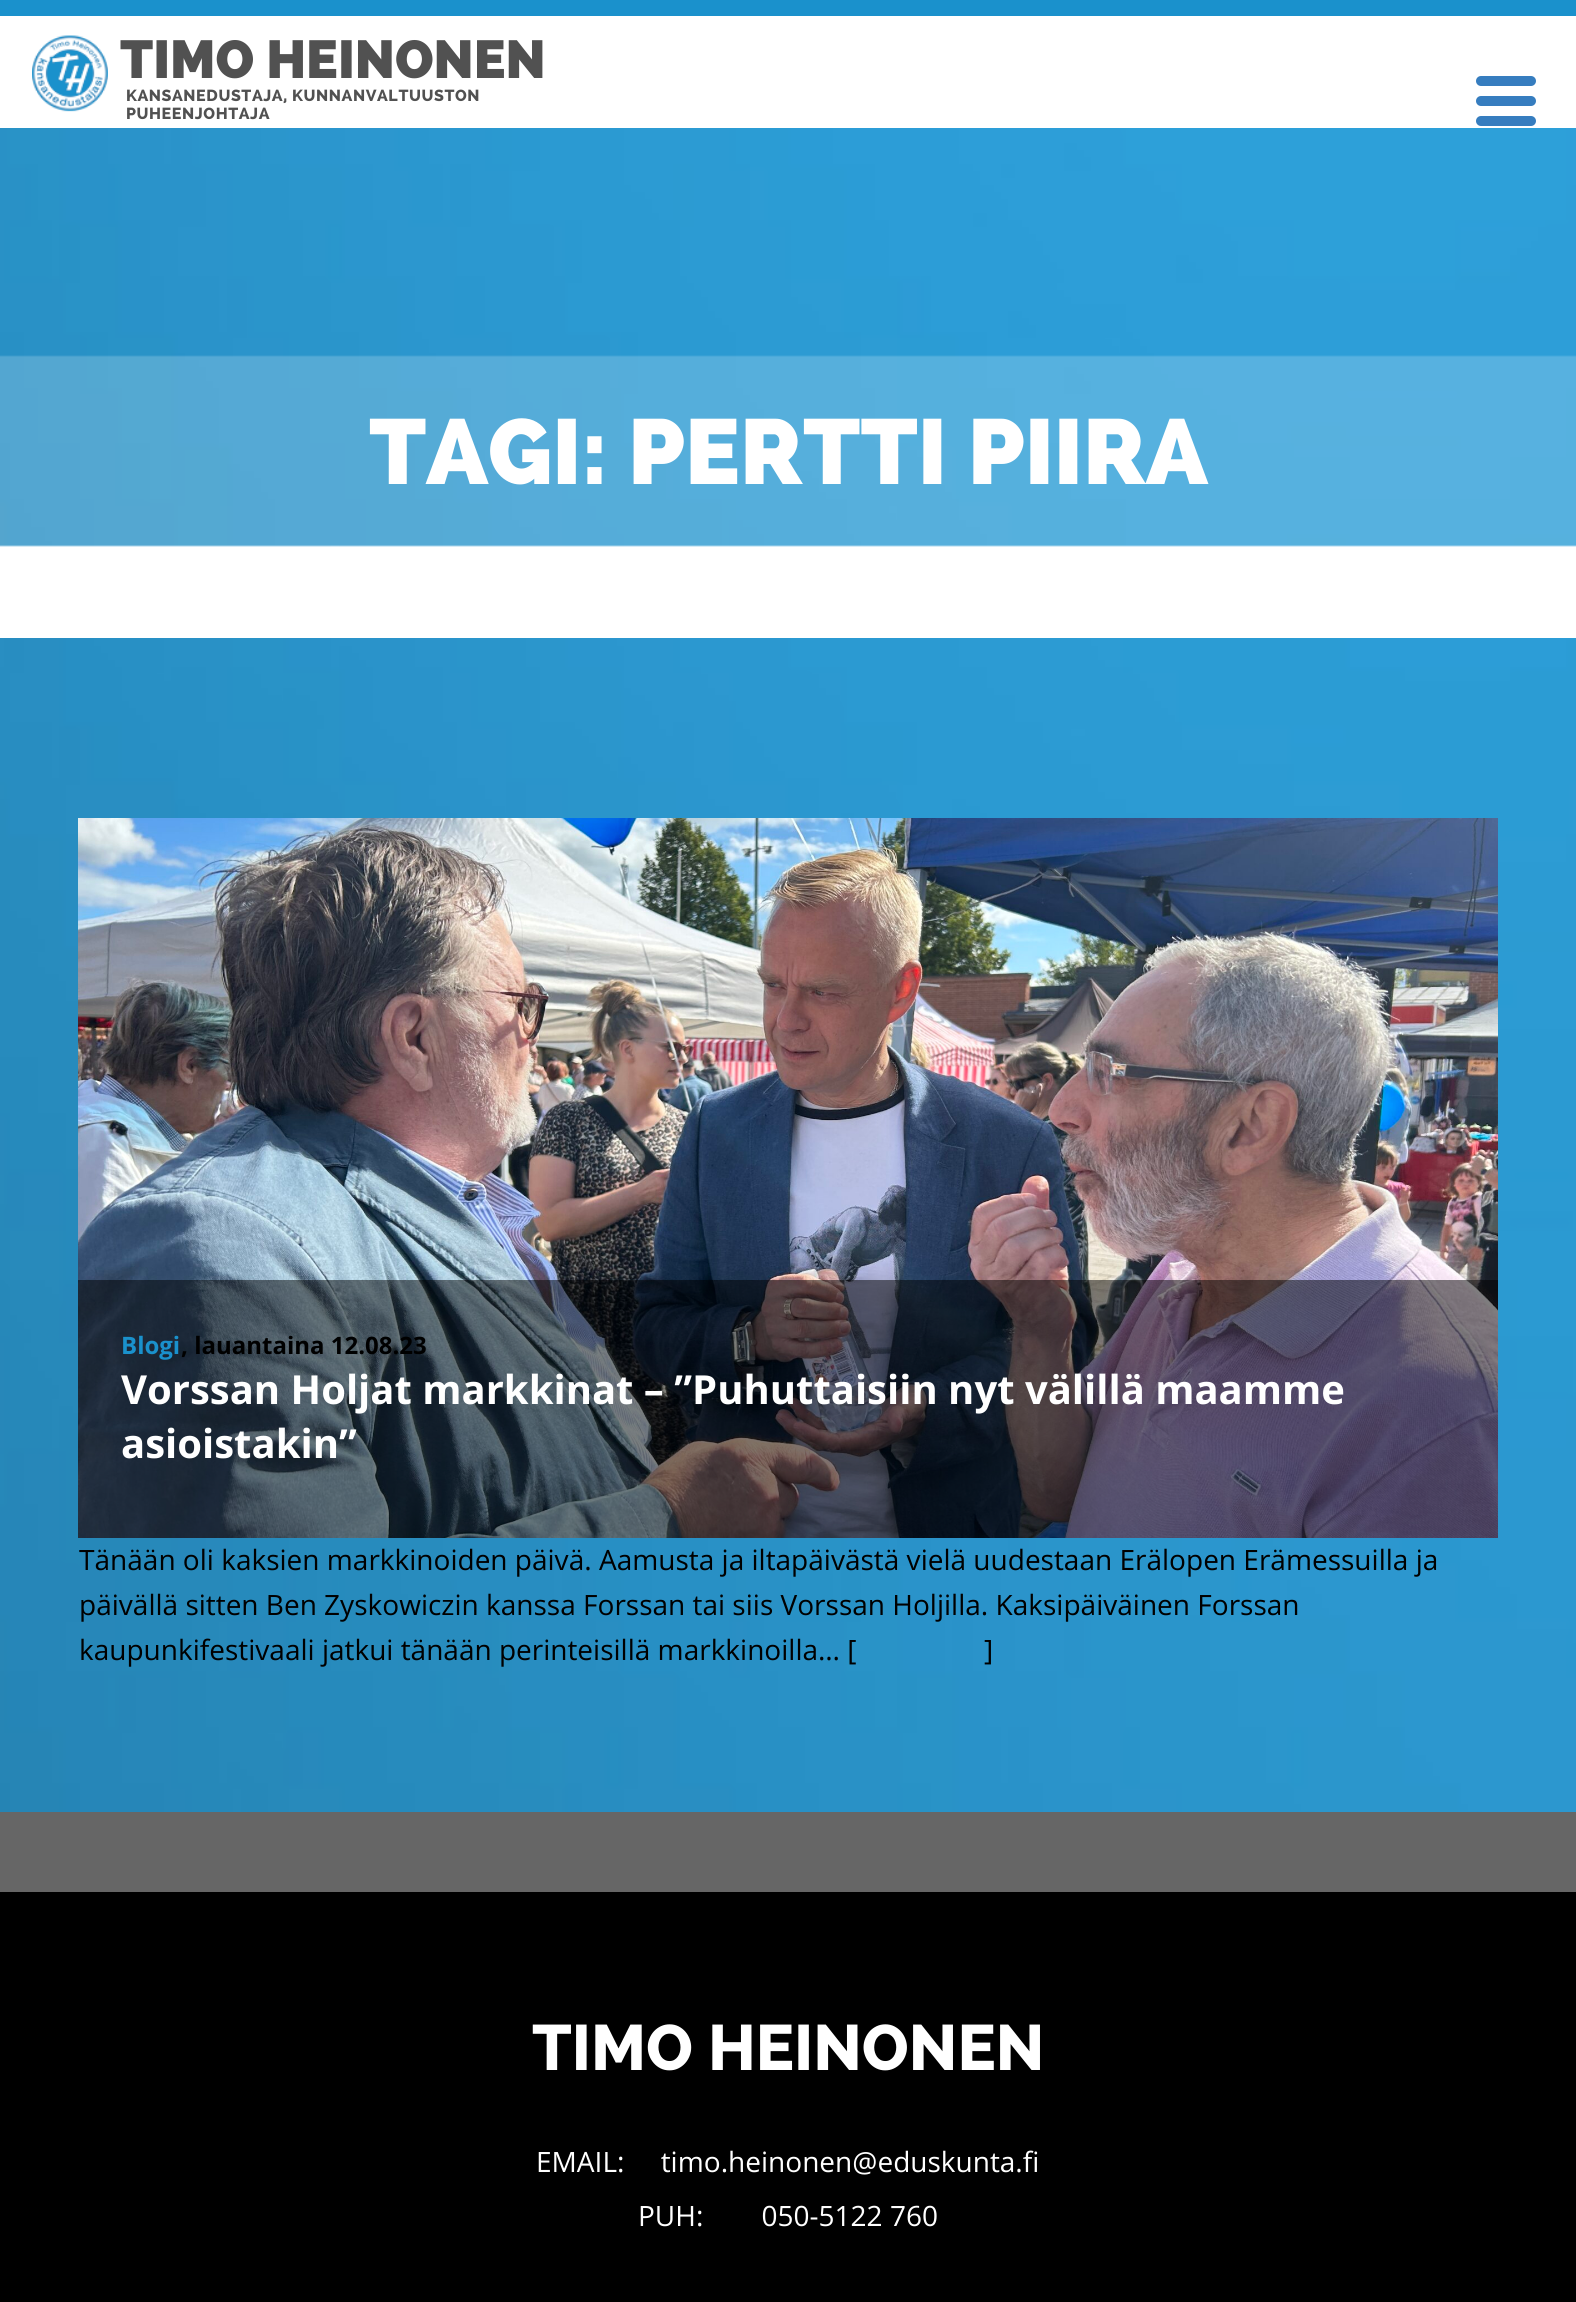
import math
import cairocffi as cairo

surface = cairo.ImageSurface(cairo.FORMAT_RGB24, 1576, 2302)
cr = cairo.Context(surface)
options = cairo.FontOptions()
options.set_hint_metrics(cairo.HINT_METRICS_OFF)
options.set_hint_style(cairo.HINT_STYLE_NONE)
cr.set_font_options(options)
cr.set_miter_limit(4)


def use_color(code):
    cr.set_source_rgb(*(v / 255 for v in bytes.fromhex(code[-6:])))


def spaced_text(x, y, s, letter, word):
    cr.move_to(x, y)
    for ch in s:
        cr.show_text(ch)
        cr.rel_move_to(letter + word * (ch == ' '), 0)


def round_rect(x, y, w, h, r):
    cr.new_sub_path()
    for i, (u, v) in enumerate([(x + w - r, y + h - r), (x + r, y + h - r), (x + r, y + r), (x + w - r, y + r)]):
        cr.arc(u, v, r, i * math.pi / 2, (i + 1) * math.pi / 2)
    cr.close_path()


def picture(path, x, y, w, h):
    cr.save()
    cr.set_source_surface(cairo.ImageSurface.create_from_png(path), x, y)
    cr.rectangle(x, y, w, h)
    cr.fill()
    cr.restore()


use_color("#666666")
cr.paint()
use_color("#1a91cc")
cr.rectangle(0, 0, 1576, 16)
cr.fill()
use_color("#ffffff")
cr.rectangle(0, 16, 1576, 112)
cr.fill()
picture("img1.png", 32, 35, 76, 77)
cr.select_font_face("Raleway Black")
cr.set_font_size(53.25)
use_color("#515151")
cr.move_to(120, 78)
cr.show_text("TIMO HEINONEN")
cr.select_font_face("Raleway ExtraBold")
cr.set_font_size(16)
spaced_text(126, 101, "KANSANEDUSTAJA, KUNNANVALTUUSTON", 0.6, 0)
spaced_text(126, 119, "PUHEENJOHTAJA", 0.6, 0)
use_color("#367dbf")
round_rect(1476, 96, 60, 10, 5)
cr.fill()
round_rect(1476, 76, 60, 10, 5)
cr.fill()
round_rect(1476, 116, 60, 10, 5)
cr.fill()
picture("img2.png", 0, 128, 1576, 1684)
picture("img3.png", 0, 355, 1576, 283)
cr.select_font_face("Raleway Black")
cr.set_font_size(92)
use_color("#ffffff")
cr.move_to(369, 484)
cr.show_text("TAGI: PERTTI PIIRA")
picture("img4.png", 78, 818, 1420, 720)
cr.set_source_rgba(0, 0, 0, 0.5)
cr.rectangle(78, 1280, 1420, 258)
cr.fill()
cr.select_font_face("Open Sans", cairo.FONT_SLANT_NORMAL, cairo.FONT_WEIGHT_BOLD)
cr.set_font_size(24)
use_color("#1a91cc")
cr.move_to(121, 1354)
cr.show_text("Blogi")
use_color("#000000")
cr.move_to(181, 1354)
cr.show_text(", lauantaina 12.08.23")
cr.set_font_size(40)
use_color("#ffffff")
cr.move_to(121, 1404)
cr.show_text("Vorssan Holjat markkinat – ”Puhuttaisiin nyt välillä maamme")
cr.move_to(121, 1458)
cr.show_text("asioistakin”")
cr.select_font_face("Open Sans")
cr.set_font_size(28)
use_color("#000000")
cr.move_to(79, 1570)
cr.show_text("Tänään oli kaksien markkinoiden päivä. Aamusta ja iltapäivästä vielä uudestaan Erälopen Erämessuilla ja")
cr.move_to(79, 1615)
cr.show_text("päivällä sitten Ben Zyskowiczin kanssa Forssan tai siis Vorssan Holjilla. Kaksipäiväinen Forssan")
cr.move_to(79, 1660)
cr.show_text("kaupunkifestivaali jatkui tänään perinteisillä markkinoilla… [")
cr.move_to(984, 1660)
cr.show_text("]")
cr.rectangle(0, 1892, 1576, 410)
cr.fill()
cr.select_font_face("Raleway ExtraBold")
cr.set_font_size(64)
use_color("#ffffff")
cr.move_to(532, 2070)
cr.show_text("TIMO HEINONEN")
cr.select_font_face("Open Sans")
cr.set_font_size(28)
cr.move_to(536, 2172)
cr.show_text("EMAIL:     timo.heinonen@eduskunta.fi")
cr.move_to(638, 2226)
cr.show_text("PUH:        050-5122 760")
surface.write_to_png("result.png")
